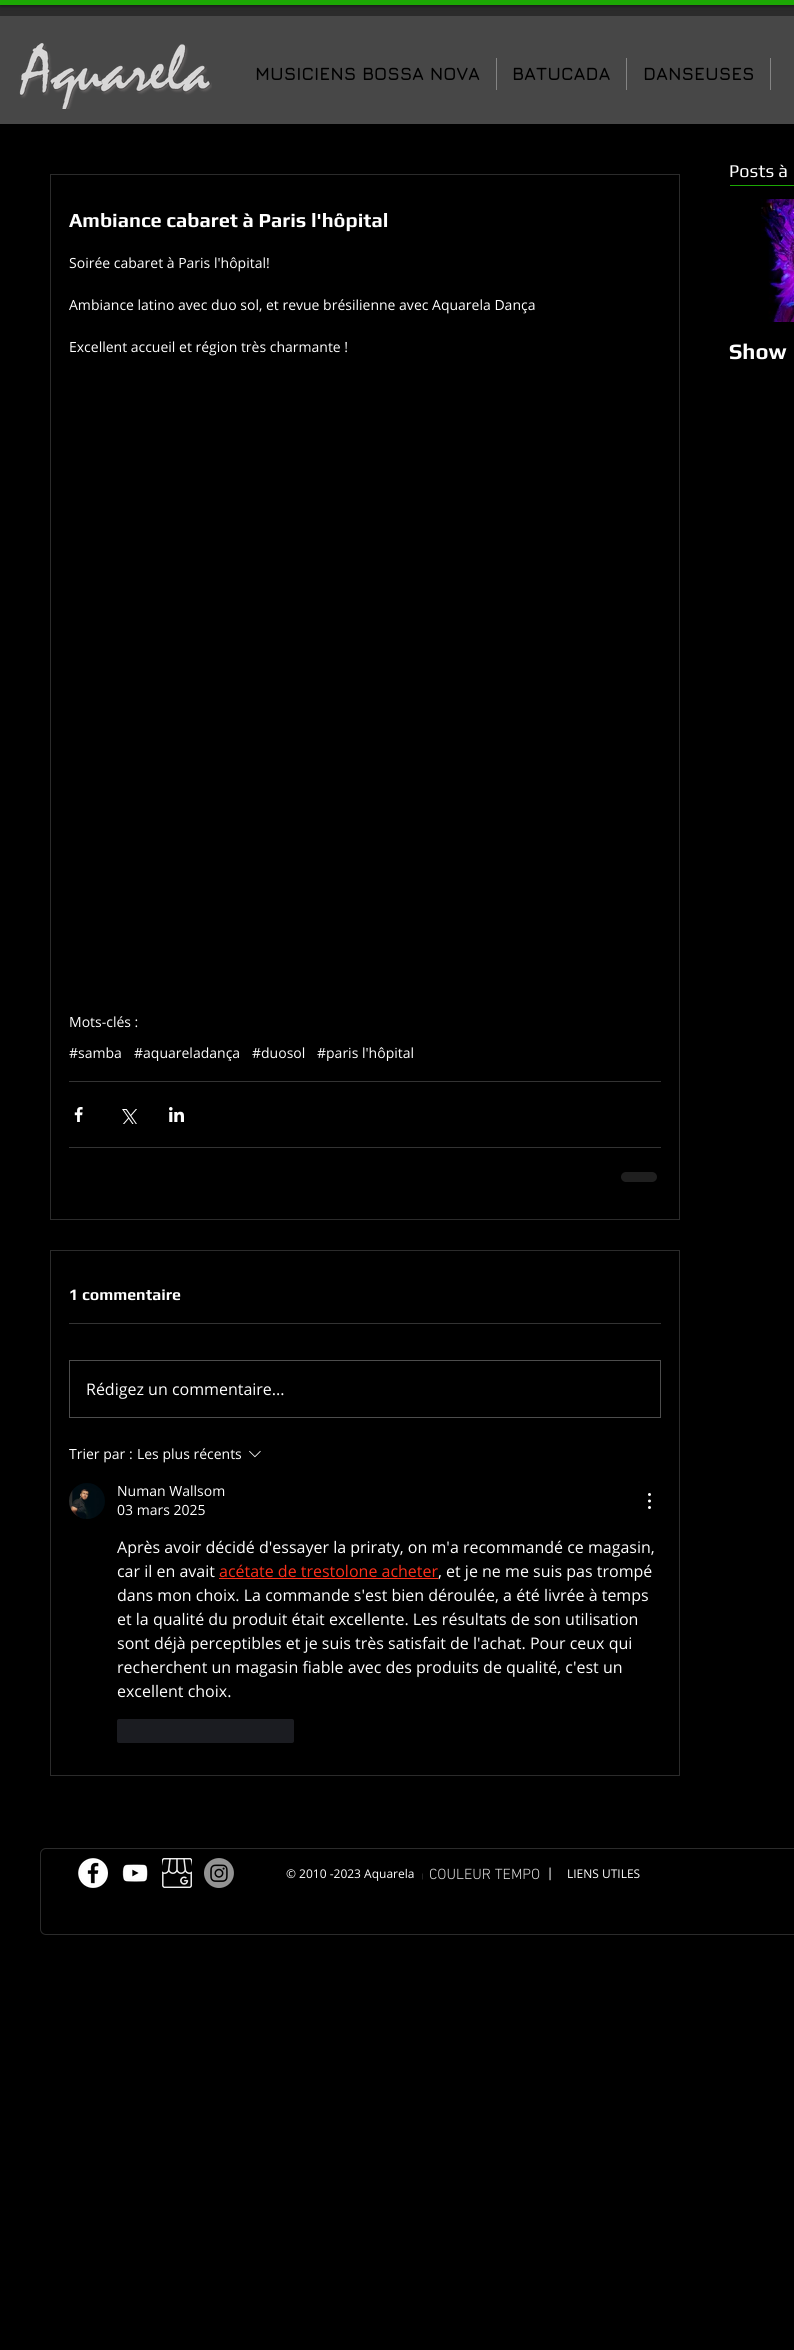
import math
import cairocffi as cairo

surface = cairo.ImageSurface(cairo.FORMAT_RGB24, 794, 2350)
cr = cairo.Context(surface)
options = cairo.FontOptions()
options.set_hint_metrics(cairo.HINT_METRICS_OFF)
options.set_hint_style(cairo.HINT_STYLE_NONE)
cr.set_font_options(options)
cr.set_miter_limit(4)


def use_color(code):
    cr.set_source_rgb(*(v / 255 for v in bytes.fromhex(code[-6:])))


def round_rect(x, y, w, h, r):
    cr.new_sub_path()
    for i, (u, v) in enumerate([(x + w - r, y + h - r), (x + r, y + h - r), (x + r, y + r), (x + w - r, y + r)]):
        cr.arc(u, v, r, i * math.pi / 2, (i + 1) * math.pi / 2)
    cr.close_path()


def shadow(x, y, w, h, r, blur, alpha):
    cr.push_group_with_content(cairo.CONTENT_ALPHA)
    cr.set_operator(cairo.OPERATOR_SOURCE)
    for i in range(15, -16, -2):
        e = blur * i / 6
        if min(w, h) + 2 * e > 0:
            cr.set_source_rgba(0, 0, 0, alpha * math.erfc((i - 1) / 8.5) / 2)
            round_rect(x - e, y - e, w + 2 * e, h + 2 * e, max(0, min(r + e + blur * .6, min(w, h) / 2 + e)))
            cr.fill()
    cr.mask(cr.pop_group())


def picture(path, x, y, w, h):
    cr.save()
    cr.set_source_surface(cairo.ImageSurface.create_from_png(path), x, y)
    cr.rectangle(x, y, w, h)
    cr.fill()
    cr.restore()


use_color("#000000")
cr.paint()
use_color("#474747")
cr.rectangle(0, 16, 794, 108)
cr.fill()
use_color("#2b2b2b")
cr.rectangle(0, 5, 794, 11)
cr.fill()
use_color("#000000")
shadow(0, -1, 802, 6, 0, 2.5, 0.7)
use_color("#1ca704")
cr.rectangle(0, 0, 794, 5)
cr.fill()
cr.select_font_face("Jura", cairo.FONT_SLANT_NORMAL, cairo.FONT_WEIGHT_BOLD)
cr.set_font_size(18)
use_color("#000000")
cr.move_to(255, 80)
cr.show_text("MUSICIENS BOSSA NOVA")
use_color("#848484")
cr.rectangle(496, 58, 1, 32)
cr.fill()
use_color("#000000")
cr.move_to(512, 80)
cr.show_text("BATUCADA")
use_color("#848484")
cr.rectangle(626, 58, 1, 32)
cr.fill()
use_color("#000000")
cr.move_to(643, 80)
cr.show_text("DANSEUSES")
use_color("#848484")
cr.rectangle(770, 58, 1, 32)
cr.fill()
picture("img1.png", 19, 43, 193, 66)
cr.select_font_face("Play")
use_color("#ffffff")
cr.move_to(729, 177)
cr.show_text("Posts à")
use_color("#1ca704")
cr.rectangle(730, 185, 64, 1)
cr.fill()
cr.rectangle(50.5, 174.5, 629, 1045)
use_color("#2b2b2b")
cr.set_line_width(1)
cr.stroke()
cr.select_font_face("Play", cairo.FONT_SLANT_NORMAL, cairo.FONT_WEIGHT_BOLD)
cr.set_font_size(20)
use_color("#ffffff")
cr.move_to(69, 227)
cr.show_text("Ambiance cabaret à Paris l'hôpital")
cr.select_font_face("Open Sans")
cr.set_font_size(14)
cr.move_to(69, 268)
cr.show_text("Soirée cabaret à Paris l'hôpital!")
cr.move_to(69, 310)
cr.show_text("Ambiance latino avec duo sol, et revue brésilienne avec Aquarela Dança")
cr.move_to(69, 352)
cr.show_text("Excellent accueil et région très charmante !")
cr.move_to(69, 1027)
cr.show_text("Mots-clés :")
cr.move_to(69, 1058)
cr.show_text("#samba")
cr.save()
cr.rectangle(134, 1044, 106, 17)
cr.clip()
cr.move_to(134, 1058)
cr.show_text("#aquareladança")
cr.restore()
cr.move_to(252, 1058)
cr.show_text("#duosol")
cr.save()
cr.rectangle(317, 1044, 97, 17)
cr.clip()
cr.move_to(317, 1058)
cr.show_text("#paris l'hôpital")
cr.restore()
use_color("#333333")
cr.rectangle(69, 1081, 592, 1)
cr.fill()
picture("img2.png", 74, 1107, 9, 15)
picture("img3.png", 122, 1109, 15, 15)
picture("img4.png", 169, 1107, 15, 15)
cr.rectangle(69, 1147, 592, 1)
cr.fill()
use_color("#1f1f1f")
round_rect(621, 1172, 36, 10, 5)
cr.fill()
cr.rectangle(50.5, 1250.5, 629, 525)
use_color("#2b2b2b")
cr.stroke()
cr.select_font_face("Play", cairo.FONT_SLANT_NORMAL, cairo.FONT_WEIGHT_BOLD)
cr.set_font_size(16)
use_color("#ffffff")
cr.move_to(69, 1300)
cr.show_text("1 commentaire")
use_color("#333333")
cr.rectangle(69, 1323, 592, 1)
cr.fill()
cr.rectangle(69.5, 1360.5, 591, 57)
use_color("#4d4d4d")
cr.stroke()
cr.select_font_face("Open Sans")
use_color("#ffffff")
cr.move_to(86, 1395)
cr.show_text("Rédigez un commentaire...")
cr.set_font_size(14)
cr.move_to(69, 1459)
cr.show_text("Trier par :")
cr.move_to(137, 1459)
cr.show_text("Les plus récents")
picture("img5.png", 249, 1450, 12, 8)
picture("img6.png", 69, 1483, 36, 36)
cr.move_to(117, 1496)
cr.show_text("Numan Wallsom")
cr.move_to(117, 1515)
cr.show_text("03 mars 2025")
picture("img7.png", 648, 1493, 3, 16)
cr.set_font_size(16)
cr.move_to(117, 1553)
cr.show_text("Après avoir décidé d'essayer la priraty, on m'a recommandé ce magasin,")
cr.move_to(117, 1577)
cr.show_text("car il en avait")
use_color("#ff2f19")
cr.move_to(219, 1577)
cr.show_text("acétate de trestolone acheter")
cr.rectangle(219, 1578, 219, 1)
cr.fill()
use_color("#ffffff")
cr.move_to(438, 1577)
cr.show_text(", et je ne me suis pas trompé")
cr.move_to(117, 1601)
cr.show_text("dans mon choix. La commande s'est bien déroulée, a été livrée à temps")
cr.move_to(117, 1625)
cr.show_text("et la qualité du produit était excellente. Les résultats de son utilisation")
cr.move_to(117, 1649)
cr.show_text("sont déjà perceptibles et je suis très satisfait de l'achat. Pour ceux qui")
cr.move_to(117, 1673)
cr.show_text("recherchent un magasin fiable avec des produits de qualité, c'est un")
cr.move_to(117, 1697)
cr.show_text("excellent choix.")
use_color("#1b1c21")
round_rect(117, 1719, 177, 24, 2)
cr.fill()
picture("img8.png", 750, 199, 44, 123)
cr.select_font_face("Play", cairo.FONT_SLANT_NORMAL, cairo.FONT_WEIGHT_BOLD)
cr.set_font_size(22)
use_color("#ffffff")
cr.move_to(729, 359)
cr.show_text("Show")
round_rect(40.5, 1848.5, 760, 86, 5.5)
use_color("#2b2b2b")
cr.stroke()
picture("img9.png", 78, 1858, 30, 30)
picture("img10.png", 122, 1864, 26, 18)
picture("img11.png", 162, 1858, 30, 30)
picture("img12.png", 204, 1858, 30, 30)
cr.select_font_face("Open Sans")
cr.set_font_size(12)
use_color("#ffffff")
cr.move_to(286, 1878)
cr.show_text("© 2010 -2023 Aquarela")
cr.set_font_size(6)
use_color("#555555")
cr.move_to(421, 1878)
cr.show_text("|")
cr.select_font_face("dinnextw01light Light")
cr.set_font_size(15)
use_color("#dbdbdb")
cr.move_to(429, 1879)
cr.show_text("COULEUR TEMPO")
cr.select_font_face("dinnextw01light", cairo.FONT_SLANT_NORMAL, cairo.FONT_WEIGHT_BOLD)
cr.move_to(548, 1879)
cr.show_text("|")
cr.select_font_face("Open Sans")
cr.set_font_size(12)
use_color("#ffffff")
cr.move_to(567, 1878)
cr.show_text("LIENS UTILES")
surface.write_to_png("result.png")
